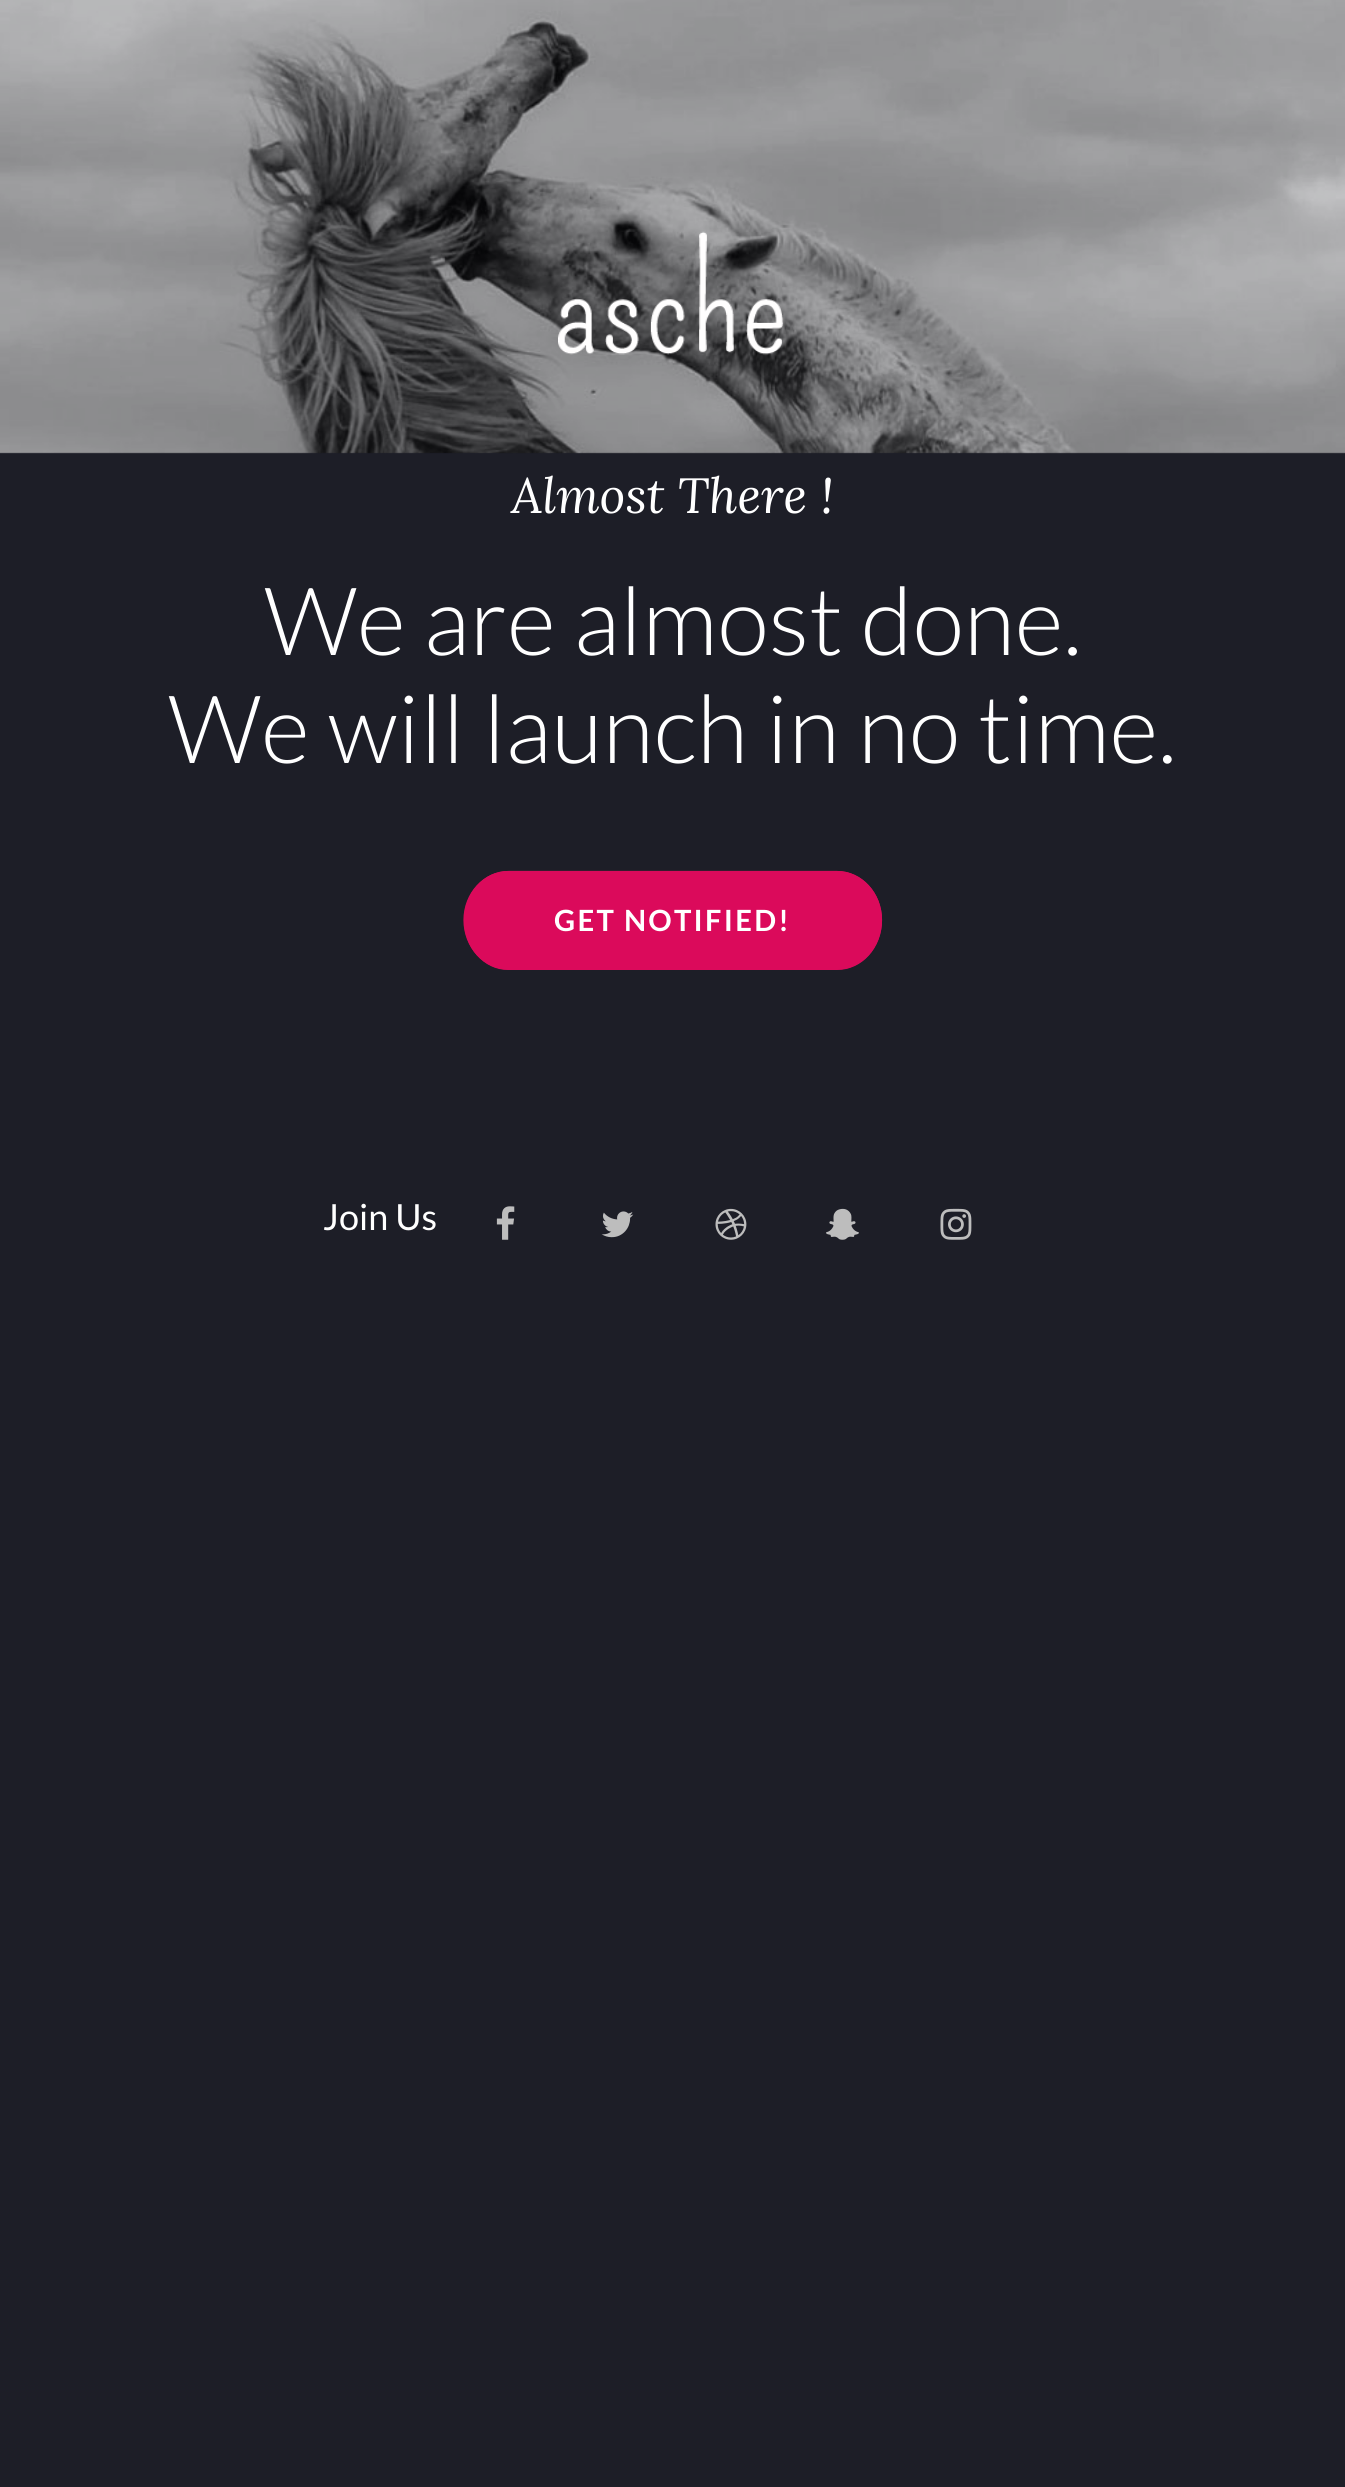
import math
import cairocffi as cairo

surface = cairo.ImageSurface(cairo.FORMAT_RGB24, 1345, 2487)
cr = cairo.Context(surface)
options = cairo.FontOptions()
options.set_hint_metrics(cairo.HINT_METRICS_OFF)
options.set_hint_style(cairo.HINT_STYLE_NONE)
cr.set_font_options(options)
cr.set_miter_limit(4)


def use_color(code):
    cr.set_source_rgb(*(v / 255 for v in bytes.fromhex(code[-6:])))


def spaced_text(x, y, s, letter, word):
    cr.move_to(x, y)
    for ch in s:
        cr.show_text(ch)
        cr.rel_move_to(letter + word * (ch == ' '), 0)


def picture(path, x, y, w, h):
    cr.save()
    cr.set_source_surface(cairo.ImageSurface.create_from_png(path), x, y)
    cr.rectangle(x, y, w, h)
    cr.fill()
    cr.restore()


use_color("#1d1e27")
cr.paint()
picture("img1.png", 0, 0, 1345, 454)
picture("img2.png", 558, 231, 226, 124)
cr.select_font_face("Lora", cairo.FONT_SLANT_ITALIC)
cr.set_font_size(49.5)
use_color("#ffffff")
cr.move_to(511, 513)
cr.show_text("Almost There !")
cr.select_font_face("Lato Light")
cr.set_font_size(94.5)
cr.move_to(264, 655)
cr.show_text("We are almost done.")
cr.move_to(168, 763)
cr.show_text("We will launch in no time.")
use_color("#db0a5b")
cr.new_path()
cr.move_to(508, 871)
cr.line_to(837, 871)
cr.curve_to(862, 871, 882, 893, 882, 920)
cr.curve_to(882, 948, 862, 970, 837, 970)
cr.line_to(508, 970)
cr.curve_to(484, 970, 464, 948, 464, 920)
cr.curve_to(464, 893, 484, 871, 508, 871)
cr.close_path()
cr.fill()
cr.new_path()
cr.move_to(508.5, 872)
cr.line_to(837, 872)
cr.curve_to(861, 872, 881, 893.5, 881, 920)
cr.curve_to(881, 947, 861, 968.5, 837, 968.5)
cr.line_to(508.5, 968.5)
cr.curve_to(484.5, 968.5, 464.5, 947, 464.5, 920)
cr.curve_to(464.5, 893.5, 484.5, 872, 508.5, 872)
cr.close_path()
cr.set_line_width(2.2)
cr.stroke()
cr.select_font_face("Lato", cairo.FONT_SLANT_NORMAL, cairo.FONT_WEIGHT_BOLD)
cr.set_font_size(29.25)
use_color("#ffffff")
spaced_text(554, 931, "GET NOTIFIED!", 2.25, 0)
cr.select_font_face("Lato")
cr.set_font_size(36)
cr.move_to(323, 1230)
cr.show_text("Join Us")
picture("img3.png", 496, 1206, 19, 34)
picture("img4.png", 601, 1211, 33, 27)
picture("img5.png", 715, 1208, 32, 32)
picture("img6.png", 826, 1208, 33, 32)
picture("img7.png", 940, 1208, 32, 32)
surface.write_to_png("result.png")
